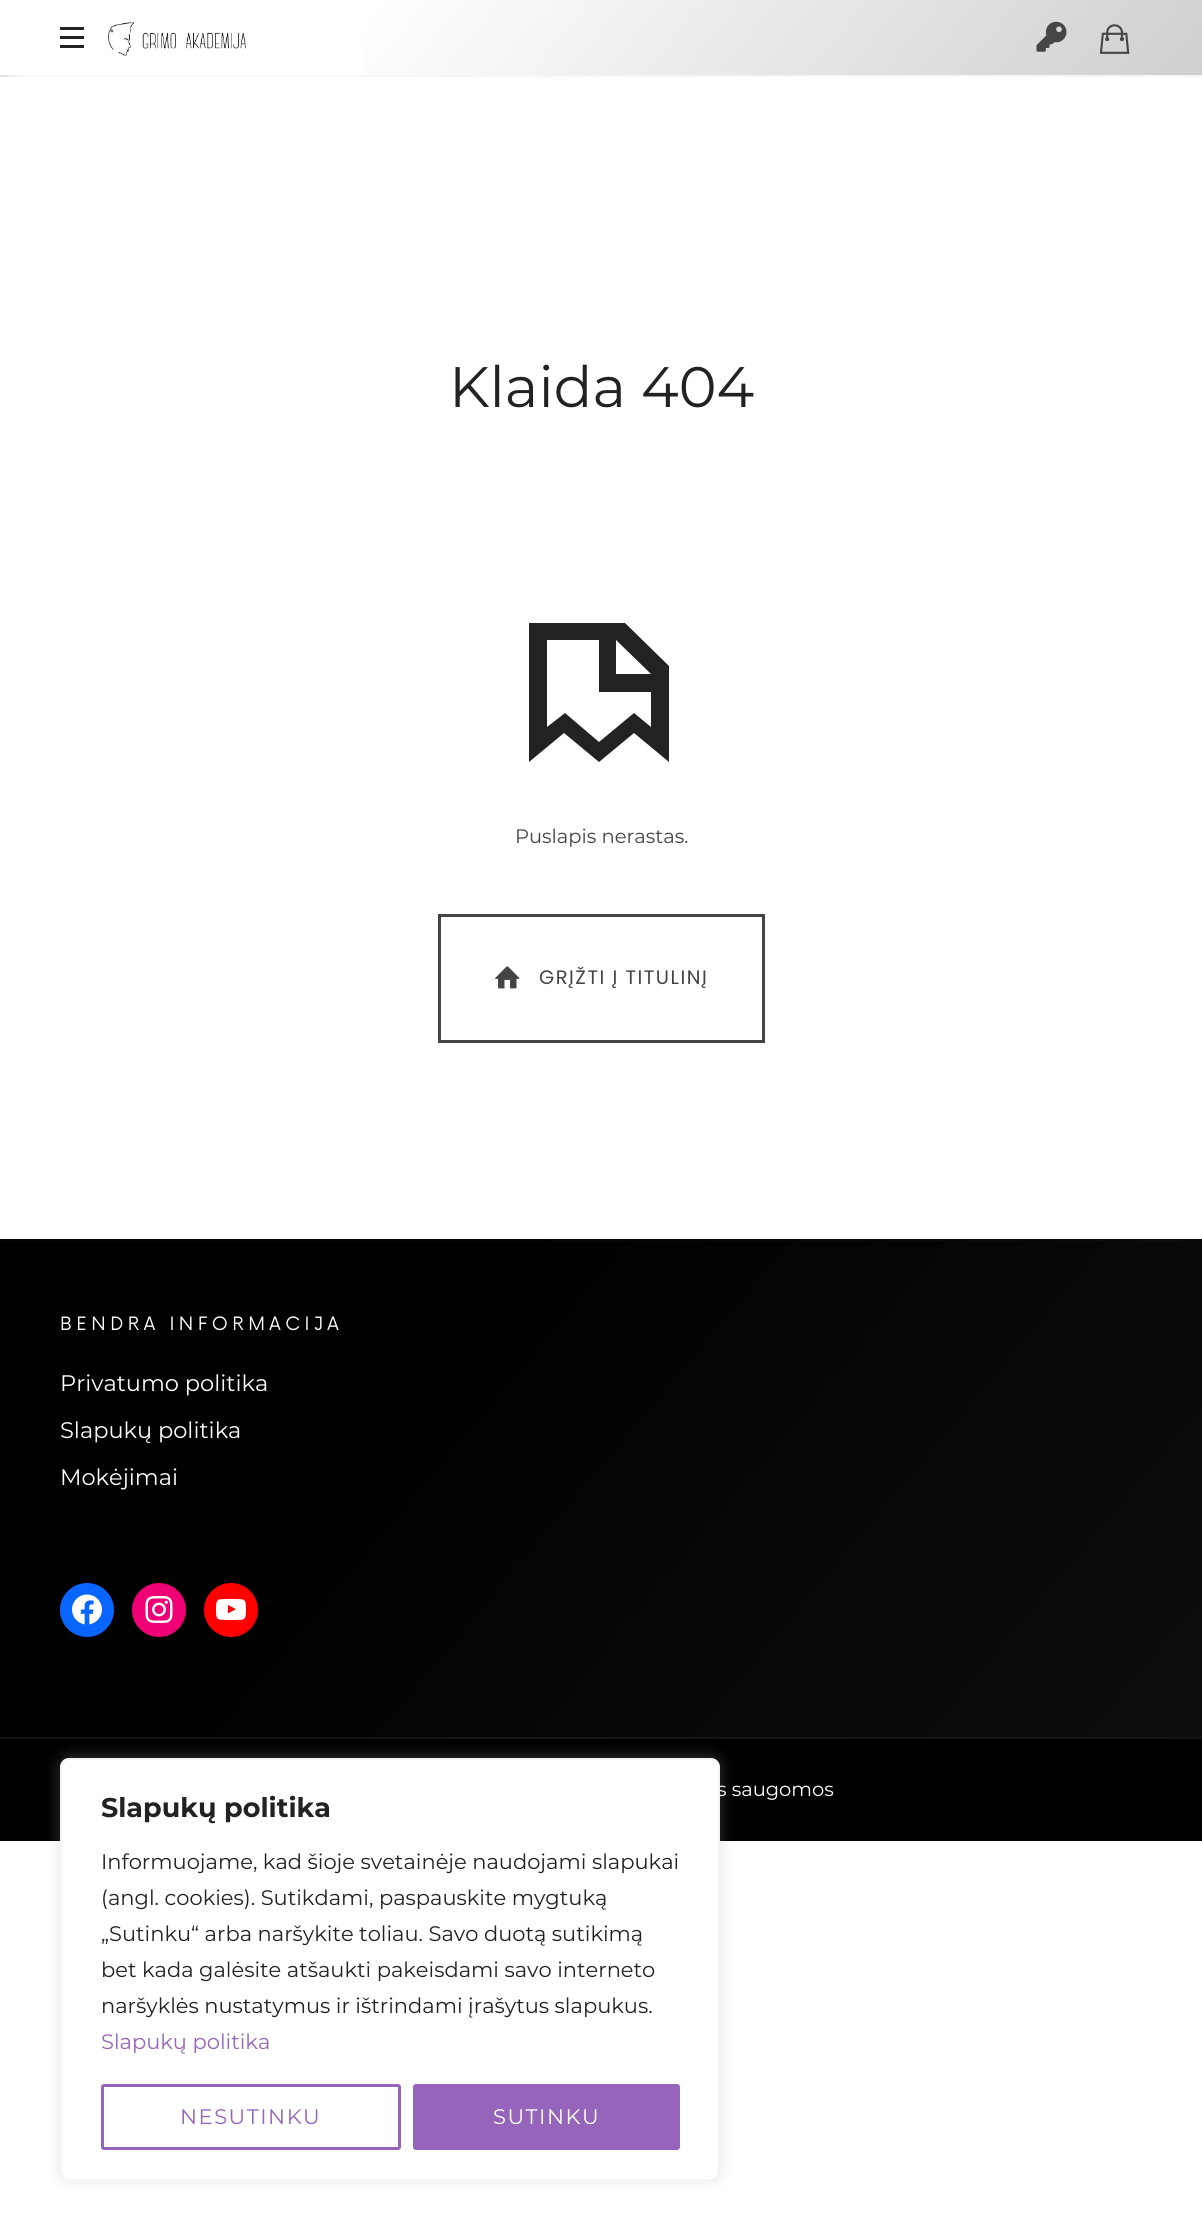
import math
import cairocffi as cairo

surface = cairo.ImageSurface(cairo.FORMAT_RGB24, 1202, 2240)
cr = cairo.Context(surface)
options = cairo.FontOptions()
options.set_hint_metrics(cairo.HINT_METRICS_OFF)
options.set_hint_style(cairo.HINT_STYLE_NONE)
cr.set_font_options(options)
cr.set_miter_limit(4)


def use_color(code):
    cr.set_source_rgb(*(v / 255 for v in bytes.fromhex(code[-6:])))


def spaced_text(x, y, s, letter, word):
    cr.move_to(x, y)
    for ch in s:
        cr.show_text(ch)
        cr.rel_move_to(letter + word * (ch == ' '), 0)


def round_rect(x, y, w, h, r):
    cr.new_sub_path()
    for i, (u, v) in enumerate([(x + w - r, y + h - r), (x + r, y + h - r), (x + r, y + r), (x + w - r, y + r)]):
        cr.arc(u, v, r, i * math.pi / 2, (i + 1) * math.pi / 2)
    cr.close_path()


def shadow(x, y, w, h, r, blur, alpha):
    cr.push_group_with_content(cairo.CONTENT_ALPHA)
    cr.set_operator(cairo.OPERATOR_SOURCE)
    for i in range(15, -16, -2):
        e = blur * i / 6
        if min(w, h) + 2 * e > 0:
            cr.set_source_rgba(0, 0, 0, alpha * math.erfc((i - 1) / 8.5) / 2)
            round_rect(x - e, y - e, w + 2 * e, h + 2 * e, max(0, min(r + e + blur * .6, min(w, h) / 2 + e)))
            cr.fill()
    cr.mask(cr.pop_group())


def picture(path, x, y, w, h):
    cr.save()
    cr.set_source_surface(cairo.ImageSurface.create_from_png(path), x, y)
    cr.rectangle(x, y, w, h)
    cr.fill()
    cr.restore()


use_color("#ffffff")
cr.paint()
use_color("#e5e5e5")
cr.rectangle(0, 75, 1202, 2)
cr.fill()
cr.set_source_rgba(1, 1, 1, 0.3)
cr.new_path()
cr.move_to(18, 75)
cr.line_to(18, 93)
cr.line_to(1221, 93)
cr.line_to(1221, 18)
cr.line_to(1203, 18)
cr.line_to(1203, 75)
cr.close_path()
cr.fill()
cr.set_source_rgba(1, 1, 1, 0.5)
cr.new_path()
cr.move_to(9, 75)
cr.line_to(9, 84)
cr.line_to(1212, 84)
cr.line_to(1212, 9)
cr.line_to(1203, 9)
cr.line_to(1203, 75)
cr.close_path()
cr.fill()
gradient = cairo.LinearGradient(230, -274, 973, 349)
gradient.add_color_stop_rgba(0.3, 1, 1, 1, 1)
gradient.add_color_stop_rgba(1, 0.812, 0.812, 0.812, 1)
cr.set_source(gradient)
cr.rectangle(364, 0, 838, 75)
cr.fill()
use_color("#222222")
cr.rectangle(60, 36, 24, 3)
cr.fill()
cr.rectangle(60, 27, 24, 3)
cr.fill()
cr.rectangle(60, 45, 24, 3)
cr.fill()
picture("img1.png", 1036, 21, 31, 31)
picture("img2.png", 1099, 24, 31, 30)
picture("img3.png", 108, 22, 138, 34)
cr.select_font_face("Montserrat")
cr.set_font_size(57)
cr.move_to(449, 407)
cr.show_text("Klaida 404")
cr.new_path()
cr.move_to(625, 623)
cr.line_to(669, 666)
cr.line_to(669, 762)
cr.line_to(634, 733)
cr.line_to(599, 762)
cr.line_to(564, 733)
cr.line_to(529, 762)
cr.line_to(529, 623)
cr.close_path()
cr.move_to(651, 727)
cr.line_to(651, 692)
cr.line_to(599, 692)
cr.line_to(599, 640)
cr.line_to(547, 640)
cr.line_to(547, 727)
cr.line_to(565, 713)
cr.line_to(599, 742)
cr.line_to(634, 713)
cr.close_path()
cr.move_to(616, 674)
cr.line_to(651, 674)
cr.line_to(616, 640)
cr.close_path()
cr.fill()
cr.set_font_size(19.5)
use_color("#444444")
cr.move_to(515, 843)
cr.show_text("Puslapis nerastas.")
cr.rectangle(439.5, 915.5, 324, 126)
cr.set_line_width(3)
cr.stroke()
picture("img4.png", 495, 966, 25, 23)
cr.select_font_face("Poppins")
spaced_text(539, 984, "GRĮŽTI Į TITULINĮ", 1.5, 0)
gradient = cairo.LinearGradient(100, 1119, 1103, 1960)
gradient.add_color_stop_rgba(0.3, 0, 0, 0, 1)
gradient.add_color_stop_rgba(1, 0.059, 0.059, 0.059, 1)
cr.set_source(gradient)
cr.rectangle(0, 1241, 1202, 496)
cr.fill()
gradient = cairo.LinearGradient(100, 1119, 1103, 1960)
gradient.add_color_stop_rgba(0.3, 0.02, 0.02, 0.02, 1)
gradient.add_color_stop_rgba(1, 0.075, 0.075, 0.075, 1)
cr.set_source(gradient)
cr.rectangle(0, 1239, 1202, 2)
cr.fill()
cr.select_font_face("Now")
cr.set_font_size(18)
use_color("#ffffff")
spaced_text(60, 1330, "BENDRA INFORMACIJA", 4.5, 0)
cr.select_font_face("Montserrat")
cr.set_font_size(22.5)
cr.move_to(60, 1391)
cr.show_text("Privatumo politika")
cr.move_to(60, 1438)
cr.show_text("Slapukų politika")
cr.move_to(60, 1485)
cr.show_text("Mokėjimai")
use_color("#0866ff")
cr.new_path()
cr.arc(87, 1610, 27, 0, 2 * math.pi)
cr.fill()
picture("img5.png", 72, 1594, 30, 31)
use_color("#f00075")
cr.arc(159, 1610, 27, 0, 2 * math.pi)
cr.fill()
picture("img6.png", 145, 1596, 28, 27)
use_color("#ff0000")
cr.arc(231, 1610, 27, 0, 2 * math.pi)
cr.fill()
picture("img7.png", 216, 1598, 30, 23)
use_color("#000000")
cr.rectangle(0, 1739, 1202, 102)
cr.fill()
use_color("#141414")
cr.rectangle(0, 1737, 1202, 2)
cr.fill()
cr.set_font_size(19.5)
use_color("#ffffff")
cr.move_to(717, 1796)
cr.show_text("s saugomos")
use_color("#acabab")
shadow(60, 1757, 660, 423, 9, 7.5, 0.3)
use_color("#ffffff")
round_rect(61, 1759, 658, 421, 8)
cr.fill_preserve()
use_color("#f4f4f4")
cr.set_line_width(2)
cr.stroke()
cr.select_font_face("Montserrat", cairo.FONT_SLANT_NORMAL, cairo.FONT_WEIGHT_BOLD)
cr.set_font_size(27)
use_color("#222222")
cr.move_to(101, 1817)
cr.show_text("Slapukų politika")
cr.select_font_face("Montserrat")
cr.set_font_size(21)
cr.move_to(101, 1869)
cr.show_text("Informuojame, kad šioje svetainėje naudojami slapukai")
cr.move_to(101, 1905)
cr.show_text("(angl. cookies). Sutikdami, paspauskite mygtuką")
cr.move_to(101, 1941)
cr.show_text("„Sutinku“ arba naršykite toliau. Savo duotą sutikimą")
cr.move_to(101, 1977)
cr.show_text("bet kada galėsite atšaukti pakeisdami savo interneto")
cr.move_to(101, 2013)
cr.show_text("naršyklės nustatymus ir ištrindami įrašytus slapukus.")
use_color("#9665bb")
cr.move_to(101, 2049)
cr.show_text("Slapukų politika")
round_rect(102.5, 2085.5, 297, 63, 1.5)
cr.set_line_width(3)
cr.stroke()
spaced_text(180, 2124, "NESUTINKU", 1.5, 0)
round_rect(414.5, 2085.5, 264, 63, 1.5)
cr.fill_preserve()
cr.stroke()
use_color("#ffffff")
spaced_text(493, 2124, "SUTINKU", 1.5, 0)
surface.write_to_png("result.png")
